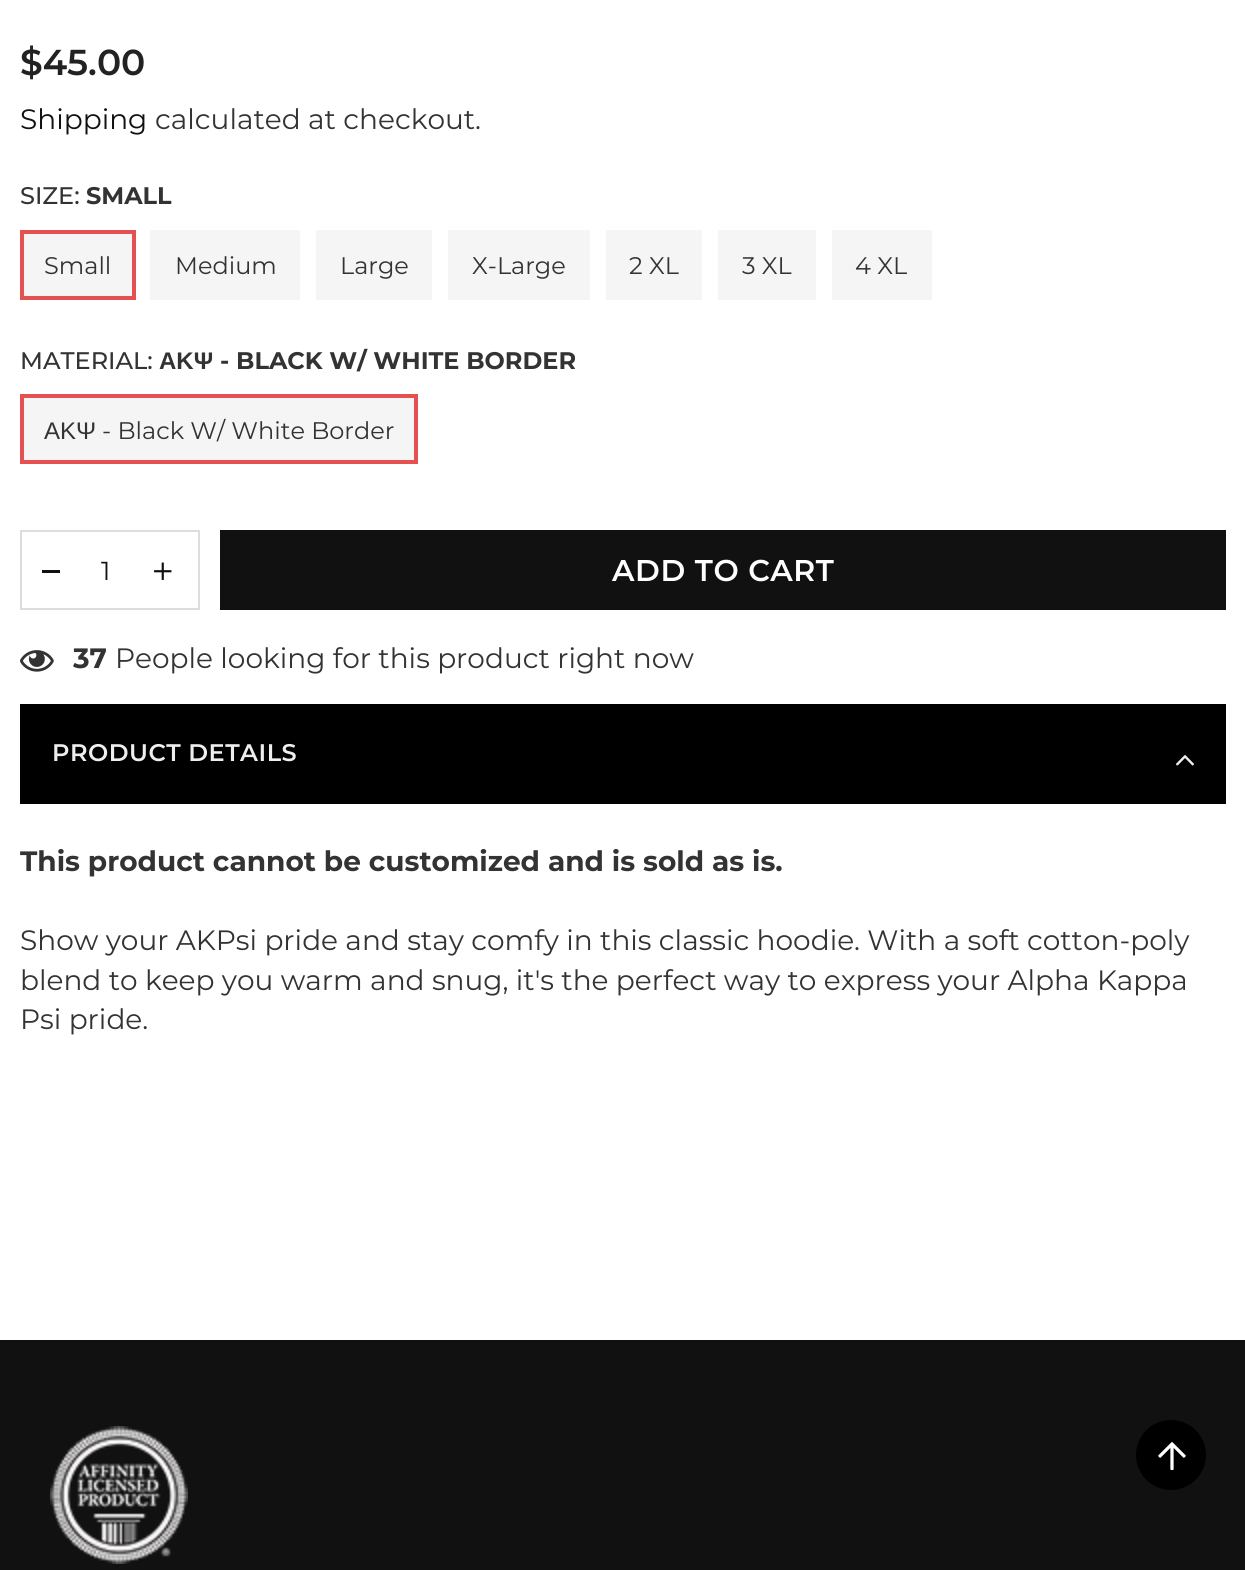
import math
import cairocffi as cairo

surface = cairo.ImageSurface(cairo.FORMAT_RGB24, 1245, 1570)
cr = cairo.Context(surface)
options = cairo.FontOptions()
options.set_hint_metrics(cairo.HINT_METRICS_OFF)
options.set_hint_style(cairo.HINT_STYLE_NONE)
cr.set_font_options(options)
cr.set_miter_limit(4)


def use_color(code):
    cr.set_source_rgb(*(v / 255 for v in bytes.fromhex(code[-6:])))


def spaced_text(x, y, s, letter, word):
    cr.move_to(x, y)
    for ch in s:
        cr.show_text(ch)
        cr.rel_move_to(letter + word * (ch == ' '), 0)


def picture(path, x, y, w, h):
    cr.save()
    cr.set_source_surface(cairo.ImageSurface.create_from_png(path), x, y)
    cr.rectangle(x, y, w, h)
    cr.fill()
    cr.restore()


use_color("#ffffff")
cr.paint()
cr.select_font_face("Montserrat SemiBold")
cr.set_font_size(36)
use_color("#222222")
cr.move_to(20, 75)
cr.show_text("$45.00")
cr.select_font_face("Montserrat")
cr.set_font_size(28)
use_color("#111111")
cr.move_to(20, 129)
cr.show_text("Shipping")
use_color("#333333")
cr.move_to(155, 129)
cr.show_text("calculated at checkout.")
cr.select_font_face("Montserrat Medium")
cr.set_font_size(24)
cr.move_to(20, 204)
cr.show_text("SIZE:")
cr.select_font_face("Montserrat", cairo.FONT_SLANT_NORMAL, cairo.FONT_WEIGHT_BOLD)
cr.move_to(86, 204)
cr.show_text("SMALL")
use_color("#f5f5f5")
cr.rectangle(22, 232, 112, 66)
cr.fill_preserve()
use_color("#e55151")
cr.set_line_width(4)
cr.stroke()
cr.select_font_face("Montserrat")
use_color("#333333")
cr.move_to(44, 274)
cr.show_text("Small")
use_color("#f5f5f5")
cr.rectangle(150, 230, 150, 70)
cr.fill()
use_color("#333333")
cr.move_to(175, 274)
cr.show_text("Medium")
use_color("#f5f5f5")
cr.rectangle(316, 230, 116, 70)
cr.fill()
use_color("#333333")
cr.move_to(340, 274)
cr.show_text("Large")
use_color("#f5f5f5")
cr.rectangle(448, 230, 142, 70)
cr.fill()
use_color("#333333")
cr.move_to(472, 274)
cr.show_text("X-Large")
use_color("#f5f5f5")
cr.rectangle(606, 230, 96, 70)
cr.fill()
use_color("#333333")
cr.move_to(629, 274)
cr.show_text("2 XL")
use_color("#f5f5f5")
cr.rectangle(718, 230, 98, 70)
cr.fill()
use_color("#333333")
cr.move_to(742, 274)
cr.show_text("3 XL")
use_color("#f5f5f5")
cr.rectangle(832, 230, 100, 70)
cr.fill()
use_color("#333333")
cr.move_to(855, 274)
cr.show_text("4 XL")
cr.select_font_face("Montserrat Medium")
cr.move_to(20, 369)
cr.show_text("MATERIAL:")
cr.select_font_face("Liberation Sans", cairo.FONT_SLANT_NORMAL, cairo.FONT_WEIGHT_BOLD)
cr.move_to(159, 369)
cr.show_text("ΑΚΨ")
cr.select_font_face("Montserrat", cairo.FONT_SLANT_NORMAL, cairo.FONT_WEIGHT_BOLD)
cr.move_to(220, 369)
cr.show_text("- BLACK W/ WHITE BORDER")
use_color("#f5f5f5")
cr.rectangle(22, 396, 394, 66)
cr.fill_preserve()
use_color("#e55151")
cr.stroke()
cr.select_font_face("Liberation Sans")
use_color("#333333")
cr.move_to(44, 439)
cr.show_text("ΑΚΨ")
cr.select_font_face("Montserrat")
cr.move_to(102, 439)
cr.show_text("- Black W/ White Border")
cr.rectangle(21, 531, 178, 78)
use_color("#dddddd")
cr.set_line_width(2)
cr.stroke()
use_color("#111111")
cr.rectangle(42, 570, 18, 3)
cr.fill()
cr.set_font_size(26)
cr.move_to(101, 580)
cr.show_text("1")
picture("img1.png", 154, 562, 18, 18)
cr.rectangle(220, 530, 1006, 80)
cr.fill()
cr.select_font_face("Montserrat SemiBold")
cr.set_font_size(30)
use_color("#ffffff")
spaced_text(612, 581, "ADD TO CART", 0.6, 0)
picture("img2.png", 20, 650, 34, 22)
cr.select_font_face("Montserrat", cairo.FONT_SLANT_NORMAL, cairo.FONT_WEIGHT_BOLD)
cr.set_font_size(28)
use_color("#333333")
cr.move_to(73, 668)
cr.show_text("37")
cr.select_font_face("Montserrat")
cr.move_to(115, 668)
cr.show_text("People looking for this product right now")
use_color("#000000")
cr.rectangle(20, 704, 1206, 100)
cr.fill()
cr.select_font_face("Montserrat SemiBold")
cr.set_font_size(24)
use_color("#eeeeee")
spaced_text(52, 761, "PRODUCT DETAILS", 0.5, 0)
picture("img3.png", 1176, 755, 18, 11)
cr.select_font_face("Montserrat", cairo.FONT_SLANT_NORMAL, cairo.FONT_WEIGHT_BOLD)
cr.set_font_size(28)
use_color("#333333")
cr.move_to(20, 871)
cr.show_text("This product cannot be customized and is sold as is.")
cr.select_font_face("Montserrat")
cr.move_to(20, 950)
cr.show_text("Show your AKPsi pride and stay comfy in this classic hoodie. With a soft cotton-poly")
cr.move_to(20, 990)
cr.show_text("blend to keep you warm and snug, it's the perfect way to express your Alpha Kappa")
cr.move_to(20, 1029)
cr.show_text("Psi pride.")
use_color("#111111")
cr.rectangle(0, 1340, 1245, 230)
cr.fill()
picture("img4.png", 50, 1426, 138, 138)
use_color("#000000")
cr.arc(1171, 1455, 35, 0, 2 * math.pi)
cr.fill()
picture("img5.png", 1158, 1442, 28, 28)
surface.write_to_png("result.png")
